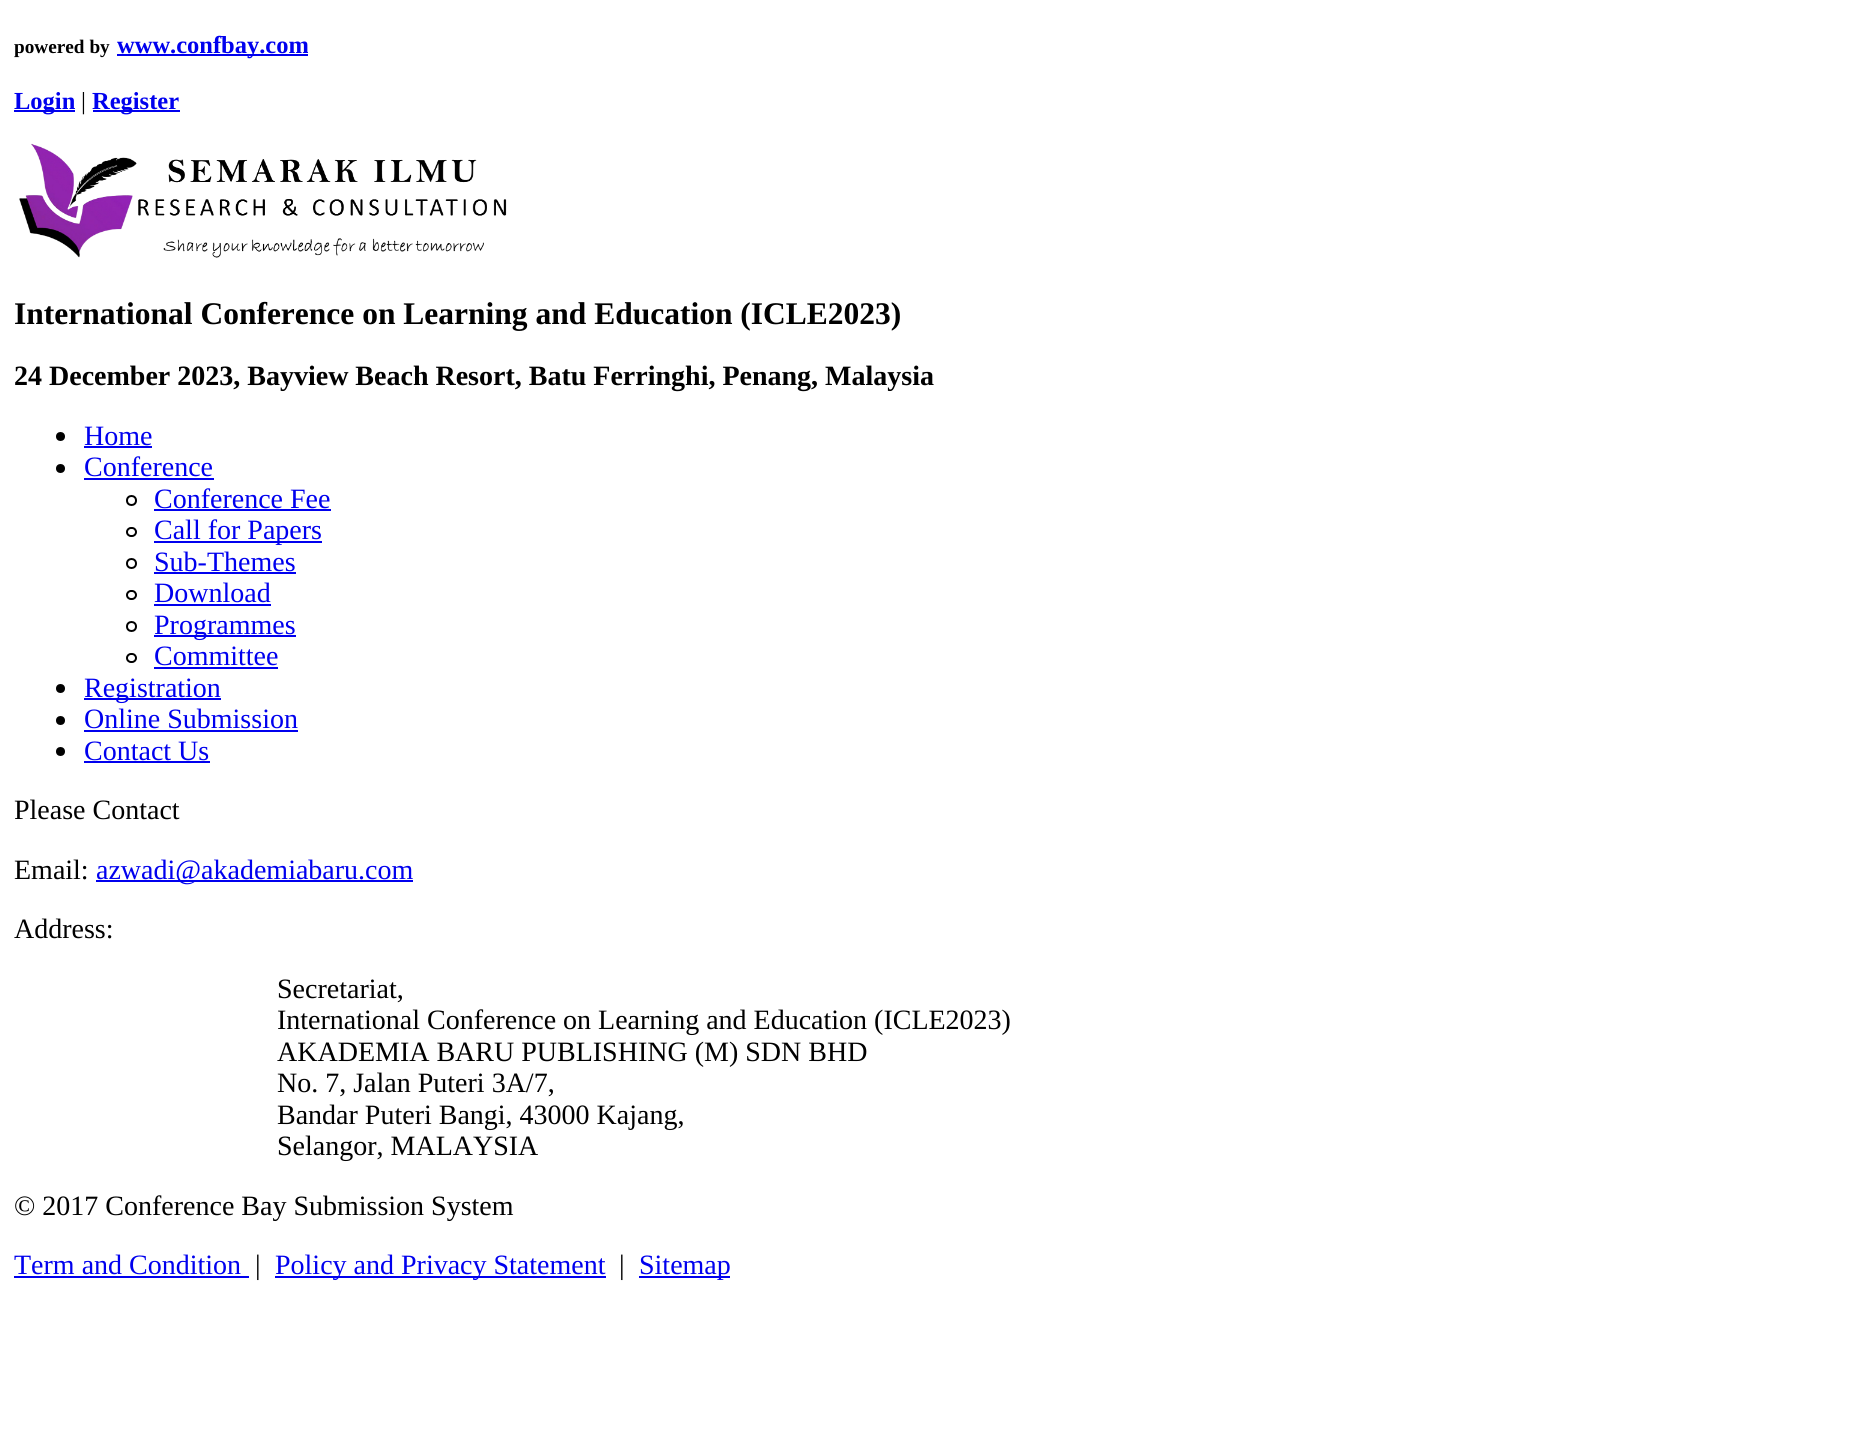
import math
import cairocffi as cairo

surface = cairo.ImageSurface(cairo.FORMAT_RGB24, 1853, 1432)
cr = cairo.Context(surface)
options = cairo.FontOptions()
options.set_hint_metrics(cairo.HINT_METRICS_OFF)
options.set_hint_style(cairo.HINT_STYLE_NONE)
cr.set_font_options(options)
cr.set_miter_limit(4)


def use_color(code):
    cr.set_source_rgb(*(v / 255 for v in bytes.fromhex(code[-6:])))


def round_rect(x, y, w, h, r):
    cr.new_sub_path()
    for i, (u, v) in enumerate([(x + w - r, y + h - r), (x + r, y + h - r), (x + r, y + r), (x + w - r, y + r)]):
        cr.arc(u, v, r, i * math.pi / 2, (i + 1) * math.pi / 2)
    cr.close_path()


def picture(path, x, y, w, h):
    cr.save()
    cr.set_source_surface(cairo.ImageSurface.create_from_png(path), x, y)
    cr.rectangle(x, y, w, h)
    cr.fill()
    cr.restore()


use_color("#ffffff")
cr.paint()
cr.select_font_face("Liberation Serif", cairo.FONT_SLANT_NORMAL, cairo.FONT_WEIGHT_BOLD)
cr.set_font_size(19.25)
use_color("#000000")
cr.move_to(14, 53)
cr.show_text("powered by")
use_color("#0000ee")
cr.rectangle(117, 54, 191, 2)
cr.fill()
cr.set_font_size(24.5)
cr.move_to(117, 53)
cr.show_text("www.confbay.com")
cr.rectangle(14, 110, 61, 2)
cr.fill()
cr.move_to(14, 109)
cr.show_text("Login")
cr.select_font_face("Liberation Serif")
use_color("#000000")
cr.move_to(81, 109)
cr.show_text("|")
use_color("#0000ee")
cr.rectangle(93, 110, 87, 2)
cr.fill()
cr.select_font_face("Liberation Serif", cairo.FONT_SLANT_NORMAL, cairo.FONT_WEIGHT_BOLD)
cr.move_to(92, 109)
cr.show_text("Register")
picture("img1.png", 19, 143, 488, 115)
cr.set_font_size(31.5)
use_color("#000000")
cr.move_to(14, 324)
cr.show_text("International Conference on Learning and Education (ICLE2023)")
cr.set_font_size(28)
cr.move_to(14, 385)
cr.show_text("24 December 2023, Bayview Beach Resort, Batu Ferringhi, Penang, Malaysia")
cr.new_path()
cr.arc(60.5, 436.5, 4.5, 0, 2 * math.pi)
cr.fill()
cr.select_font_face("Liberation Serif")
use_color("#0000ee")
cr.move_to(84, 445)
cr.show_text("Home")
cr.rectangle(84, 446, 68, 2)
cr.fill()
use_color("#000000")
cr.arc(60.5, 468.5, 4.5, 0, 2 * math.pi)
cr.fill()
use_color("#0000ee")
cr.move_to(84, 476)
cr.show_text("Conference")
cr.rectangle(84, 478, 130, 2)
cr.fill()
cr.arc(131.5, 500.5, 4.5, 0, 2 * math.pi)
use_color("#000000")
cr.stroke()
use_color("#0000ee")
cr.move_to(154, 508)
cr.show_text("Conference Fee")
cr.rectangle(154, 509, 177, 2)
cr.fill()
round_rect(127, 528, 9, 8, 4)
use_color("#000000")
cr.stroke()
use_color("#0000ee")
cr.rectangle(154, 541, 168, 2)
cr.fill()
cr.move_to(154, 539)
cr.show_text("Call for Papers")
cr.new_path()
cr.arc(131.5, 563.5, 4.5, 0, 2 * math.pi)
use_color("#000000")
cr.stroke()
use_color("#0000ee")
cr.move_to(154, 571)
cr.show_text("Sub-Themes")
cr.rectangle(154, 572, 142, 2)
cr.fill()
round_rect(127, 591, 9, 8, 4)
use_color("#000000")
cr.stroke()
use_color("#0000ee")
cr.move_to(154, 602)
cr.show_text("Download")
cr.rectangle(154, 604, 117, 2)
cr.fill()
cr.arc(131.5, 626.5, 4.5, 0, 2 * math.pi)
use_color("#000000")
cr.stroke()
use_color("#0000ee")
cr.rectangle(154, 635, 142, 2)
cr.fill()
cr.move_to(154, 634)
cr.show_text("Programmes")
round_rect(127, 654, 9, 8, 4)
use_color("#000000")
cr.stroke()
use_color("#0000ee")
cr.move_to(154, 665)
cr.show_text("Committee")
cr.rectangle(154, 667, 124, 2)
cr.fill()
use_color("#000000")
cr.arc(60.5, 688.5, 4.5, 0, 2 * math.pi)
cr.fill()
use_color("#0000ee")
cr.rectangle(84, 698, 137, 2)
cr.fill()
cr.move_to(84, 697)
cr.show_text("Registration")
use_color("#000000")
cr.new_path()
cr.arc(60.5, 720.5, 4.5, 0, 2 * math.pi)
cr.fill()
use_color("#0000ee")
cr.move_to(84, 728)
cr.show_text("Online Submission")
cr.rectangle(84, 730, 214, 2)
cr.fill()
use_color("#000000")
cr.arc(60.5, 751.5, 4.5, 0, 2 * math.pi)
cr.fill()
use_color("#0000ee")
cr.move_to(84, 760)
cr.show_text("Contact Us")
cr.rectangle(84, 761, 126, 2)
cr.fill()
use_color("#000000")
cr.move_to(14, 819)
cr.show_text("Please Contact")
cr.move_to(14, 879)
cr.show_text("Email:")
use_color("#0000ee")
cr.rectangle(96, 880, 317, 2)
cr.fill()
cr.move_to(96, 879)
cr.show_text("azwadi@akademiabaru.com")
use_color("#000000")
cr.move_to(14, 938)
cr.show_text("Address:")
cr.move_to(277, 998)
cr.show_text("Secretariat,")
cr.move_to(277, 1029)
cr.show_text("International Conference on Learning and Education (ICLE2023)")
cr.move_to(277, 1061)
cr.show_text("AKADEMIA BARU PUBLISHING (M) SDN BHD")
cr.move_to(277, 1092)
cr.show_text("No. 7, Jalan Puteri 3A/7,")
cr.move_to(277, 1124)
cr.show_text("Bandar Puteri Bangi, 43000 Kajang,")
cr.move_to(277, 1155)
cr.show_text("Selangor, MALAYSIA")
cr.move_to(14, 1215)
cr.show_text("© 2017 Conference Bay Submission System")
use_color("#0000ee")
cr.move_to(14, 1274)
cr.show_text("Term and Condition")
cr.rectangle(14, 1276, 235, 2)
cr.fill()
use_color("#000000")
cr.move_to(255, 1274)
cr.show_text("|")
use_color("#0000ee")
cr.rectangle(275, 1276, 331, 2)
cr.fill()
cr.move_to(275, 1274)
cr.show_text("Policy and Privacy Statement")
use_color("#000000")
cr.move_to(619, 1274)
cr.show_text("|")
use_color("#0000ee")
cr.rectangle(639, 1276, 91, 2)
cr.fill()
cr.move_to(639, 1274)
cr.show_text("Sitemap")
surface.write_to_png("result.png")
